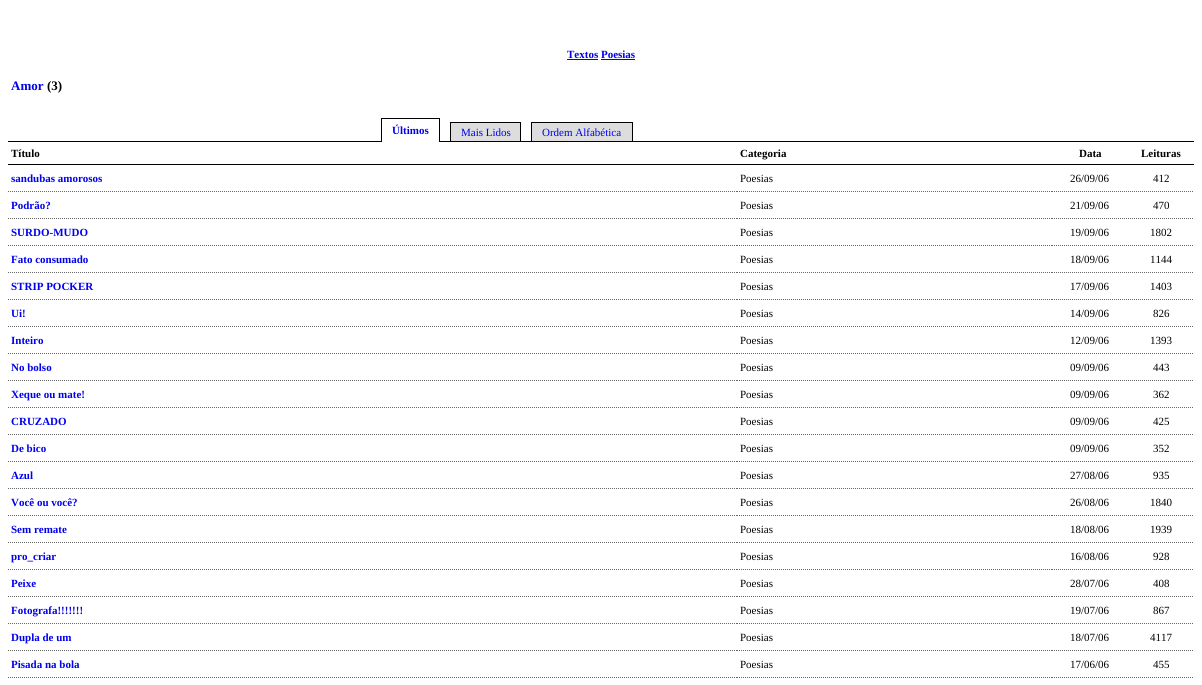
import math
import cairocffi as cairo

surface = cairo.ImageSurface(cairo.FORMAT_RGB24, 1202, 685)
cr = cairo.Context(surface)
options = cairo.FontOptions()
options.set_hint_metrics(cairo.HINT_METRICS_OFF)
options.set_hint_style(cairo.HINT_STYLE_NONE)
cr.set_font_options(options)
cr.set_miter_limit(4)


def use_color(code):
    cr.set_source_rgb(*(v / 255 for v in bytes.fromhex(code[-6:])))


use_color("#ffffff")
cr.paint()
cr.select_font_face("Liberation Serif", cairo.FONT_SLANT_NORMAL, cairo.FONT_WEIGHT_BOLD)
cr.set_font_size(11)
use_color("#0000ee")
cr.move_to(567, 58)
cr.show_text("Textos Poesias")
cr.rectangle(567, 59, 31, 1)
cr.fill()
cr.rectangle(601, 59, 34, 1)
cr.fill()
cr.set_font_size(13)
cr.move_to(11, 90)
cr.show_text("Amor")
use_color("#000000")
cr.move_to(47, 90)
cr.show_text("(3)")
cr.rectangle(8, 141, 1186, 1)
cr.fill()
use_color("#ffffff")
cr.rectangle(382, 141, 57, 1)
cr.fill()
use_color("#000000")
cr.rectangle(381, 118, 59, 1)
cr.fill()
cr.rectangle(439, 118, 1, 24)
cr.fill()
cr.rectangle(381, 118, 1, 24)
cr.fill()
cr.set_font_size(11)
use_color("#0000ee")
cr.move_to(392, 134)
cr.show_text("Últimos")
use_color("#dddddd")
cr.rectangle(450.5, 122.5, 70, 19)
cr.fill_preserve()
use_color("#000000")
cr.set_line_width(1)
cr.stroke()
cr.select_font_face("Liberation Serif")
use_color("#0000ee")
cr.move_to(461, 136)
cr.show_text("Mais Lidos")
use_color("#dddddd")
cr.rectangle(531.5, 122.5, 101, 19)
cr.fill_preserve()
use_color("#000000")
cr.stroke()
use_color("#0000ee")
cr.move_to(542, 136)
cr.show_text("Ordem Alfabética")
use_color("#000000")
cr.rectangle(8, 164, 1186, 1)
cr.fill()
cr.select_font_face("Liberation Serif", cairo.FONT_SLANT_NORMAL, cairo.FONT_WEIGHT_BOLD)
cr.move_to(11, 157)
cr.show_text("Título")
cr.move_to(740, 157)
cr.show_text("Categoria")
cr.move_to(1079, 157)
cr.show_text("Data")
cr.move_to(1141, 157)
cr.show_text("Leituras")
cr.new_path()
cr.move_to(8, 191.5)
cr.line_to(737, 191.5)
use_color("#666666")
cr.set_dash([1, 1])
cr.stroke()
use_color("#0000ee")
cr.move_to(11, 182)
cr.show_text("sandubas amorosos")
cr.new_path()
cr.move_to(737, 191.5)
cr.line_to(1052, 191.5)
use_color("#666666")
cr.stroke()
cr.select_font_face("Liberation Serif")
use_color("#000000")
cr.move_to(740, 182)
cr.show_text("Poesias")
cr.new_path()
cr.move_to(1052, 191.5)
cr.line_to(1128, 191.5)
use_color("#666666")
cr.stroke()
use_color("#000000")
cr.move_to(1070, 182)
cr.show_text("26/09/06")
cr.new_path()
cr.move_to(1128, 191.5)
cr.line_to(1194, 191.5)
use_color("#666666")
cr.stroke()
use_color("#000000")
cr.move_to(1153, 182)
cr.show_text("412")
cr.new_path()
cr.move_to(8, 218.5)
cr.line_to(737, 218.5)
use_color("#666666")
cr.stroke()
cr.select_font_face("Liberation Serif", cairo.FONT_SLANT_NORMAL, cairo.FONT_WEIGHT_BOLD)
use_color("#0000ee")
cr.move_to(11, 209)
cr.show_text("Podrão?")
cr.new_path()
cr.move_to(737, 218.5)
cr.line_to(1052, 218.5)
use_color("#666666")
cr.stroke()
cr.select_font_face("Liberation Serif")
use_color("#000000")
cr.move_to(740, 209)
cr.show_text("Poesias")
cr.new_path()
cr.move_to(1052, 218.5)
cr.line_to(1128, 218.5)
use_color("#666666")
cr.stroke()
use_color("#000000")
cr.move_to(1070, 209)
cr.show_text("21/09/06")
cr.new_path()
cr.move_to(1128, 218.5)
cr.line_to(1194, 218.5)
use_color("#666666")
cr.stroke()
use_color("#000000")
cr.move_to(1153, 209)
cr.show_text("470")
cr.new_path()
cr.move_to(8, 245.5)
cr.line_to(737, 245.5)
use_color("#666666")
cr.stroke()
cr.select_font_face("Liberation Serif", cairo.FONT_SLANT_NORMAL, cairo.FONT_WEIGHT_BOLD)
use_color("#0000ee")
cr.move_to(11, 236)
cr.show_text("SURDO-MUDO")
cr.new_path()
cr.move_to(737, 245.5)
cr.line_to(1052, 245.5)
use_color("#666666")
cr.stroke()
cr.select_font_face("Liberation Serif")
use_color("#000000")
cr.move_to(740, 236)
cr.show_text("Poesias")
cr.new_path()
cr.move_to(1052, 245.5)
cr.line_to(1128, 245.5)
use_color("#666666")
cr.stroke()
use_color("#000000")
cr.move_to(1070, 236)
cr.show_text("19/09/06")
cr.new_path()
cr.move_to(1128, 245.5)
cr.line_to(1194, 245.5)
use_color("#666666")
cr.stroke()
use_color("#000000")
cr.move_to(1150, 236)
cr.show_text("1802")
cr.new_path()
cr.move_to(8, 272.5)
cr.line_to(737, 272.5)
use_color("#666666")
cr.stroke()
cr.select_font_face("Liberation Serif", cairo.FONT_SLANT_NORMAL, cairo.FONT_WEIGHT_BOLD)
use_color("#0000ee")
cr.move_to(11, 263)
cr.show_text("Fato consumado")
cr.new_path()
cr.move_to(737, 272.5)
cr.line_to(1052, 272.5)
use_color("#666666")
cr.stroke()
cr.select_font_face("Liberation Serif")
use_color("#000000")
cr.move_to(740, 263)
cr.show_text("Poesias")
cr.new_path()
cr.move_to(1052, 272.5)
cr.line_to(1128, 272.5)
use_color("#666666")
cr.stroke()
use_color("#000000")
cr.move_to(1070, 263)
cr.show_text("18/09/06")
cr.new_path()
cr.move_to(1128, 272.5)
cr.line_to(1194, 272.5)
use_color("#666666")
cr.stroke()
use_color("#000000")
cr.move_to(1150, 263)
cr.show_text("1144")
cr.new_path()
cr.move_to(8, 299.5)
cr.line_to(737, 299.5)
use_color("#666666")
cr.stroke()
cr.select_font_face("Liberation Serif", cairo.FONT_SLANT_NORMAL, cairo.FONT_WEIGHT_BOLD)
use_color("#0000ee")
cr.move_to(11, 290)
cr.show_text("STRIP POCKER")
cr.new_path()
cr.move_to(737, 299.5)
cr.line_to(1052, 299.5)
use_color("#666666")
cr.stroke()
cr.select_font_face("Liberation Serif")
use_color("#000000")
cr.move_to(740, 290)
cr.show_text("Poesias")
cr.new_path()
cr.move_to(1052, 299.5)
cr.line_to(1128, 299.5)
use_color("#666666")
cr.stroke()
use_color("#000000")
cr.move_to(1070, 290)
cr.show_text("17/09/06")
cr.new_path()
cr.move_to(1128, 299.5)
cr.line_to(1194, 299.5)
use_color("#666666")
cr.stroke()
use_color("#000000")
cr.move_to(1150, 290)
cr.show_text("1403")
cr.new_path()
cr.move_to(8, 326.5)
cr.line_to(737, 326.5)
use_color("#666666")
cr.stroke()
cr.select_font_face("Liberation Serif", cairo.FONT_SLANT_NORMAL, cairo.FONT_WEIGHT_BOLD)
use_color("#0000ee")
cr.move_to(11, 317)
cr.show_text("Ui!")
cr.new_path()
cr.move_to(737, 326.5)
cr.line_to(1052, 326.5)
use_color("#666666")
cr.stroke()
cr.select_font_face("Liberation Serif")
use_color("#000000")
cr.move_to(740, 317)
cr.show_text("Poesias")
cr.new_path()
cr.move_to(1052, 326.5)
cr.line_to(1128, 326.5)
use_color("#666666")
cr.stroke()
use_color("#000000")
cr.move_to(1070, 317)
cr.show_text("14/09/06")
cr.new_path()
cr.move_to(1128, 326.5)
cr.line_to(1194, 326.5)
use_color("#666666")
cr.stroke()
use_color("#000000")
cr.move_to(1153, 317)
cr.show_text("826")
cr.new_path()
cr.move_to(8, 353.5)
cr.line_to(737, 353.5)
use_color("#666666")
cr.stroke()
cr.select_font_face("Liberation Serif", cairo.FONT_SLANT_NORMAL, cairo.FONT_WEIGHT_BOLD)
use_color("#0000ee")
cr.move_to(11, 344)
cr.show_text("Inteiro")
cr.new_path()
cr.move_to(737, 353.5)
cr.line_to(1052, 353.5)
use_color("#666666")
cr.stroke()
cr.select_font_face("Liberation Serif")
use_color("#000000")
cr.move_to(740, 344)
cr.show_text("Poesias")
cr.new_path()
cr.move_to(1052, 353.5)
cr.line_to(1128, 353.5)
use_color("#666666")
cr.stroke()
use_color("#000000")
cr.move_to(1070, 344)
cr.show_text("12/09/06")
cr.new_path()
cr.move_to(1128, 353.5)
cr.line_to(1194, 353.5)
use_color("#666666")
cr.stroke()
use_color("#000000")
cr.move_to(1150, 344)
cr.show_text("1393")
cr.new_path()
cr.move_to(8, 380.5)
cr.line_to(737, 380.5)
use_color("#666666")
cr.stroke()
cr.select_font_face("Liberation Serif", cairo.FONT_SLANT_NORMAL, cairo.FONT_WEIGHT_BOLD)
use_color("#0000ee")
cr.move_to(11, 371)
cr.show_text("No bolso")
cr.new_path()
cr.move_to(737, 380.5)
cr.line_to(1052, 380.5)
use_color("#666666")
cr.stroke()
cr.select_font_face("Liberation Serif")
use_color("#000000")
cr.move_to(740, 371)
cr.show_text("Poesias")
cr.new_path()
cr.move_to(1052, 380.5)
cr.line_to(1128, 380.5)
use_color("#666666")
cr.stroke()
use_color("#000000")
cr.move_to(1070, 371)
cr.show_text("09/09/06")
cr.new_path()
cr.move_to(1128, 380.5)
cr.line_to(1194, 380.5)
use_color("#666666")
cr.stroke()
use_color("#000000")
cr.move_to(1153, 371)
cr.show_text("443")
cr.new_path()
cr.move_to(8, 407.5)
cr.line_to(737, 407.5)
use_color("#666666")
cr.stroke()
cr.select_font_face("Liberation Serif", cairo.FONT_SLANT_NORMAL, cairo.FONT_WEIGHT_BOLD)
use_color("#0000ee")
cr.move_to(11, 398)
cr.show_text("Xeque ou mate!")
cr.new_path()
cr.move_to(737, 407.5)
cr.line_to(1052, 407.5)
use_color("#666666")
cr.stroke()
cr.select_font_face("Liberation Serif")
use_color("#000000")
cr.move_to(740, 398)
cr.show_text("Poesias")
cr.new_path()
cr.move_to(1052, 407.5)
cr.line_to(1128, 407.5)
use_color("#666666")
cr.stroke()
use_color("#000000")
cr.move_to(1070, 398)
cr.show_text("09/09/06")
cr.new_path()
cr.move_to(1128, 407.5)
cr.line_to(1194, 407.5)
use_color("#666666")
cr.stroke()
use_color("#000000")
cr.move_to(1153, 398)
cr.show_text("362")
cr.new_path()
cr.move_to(8, 434.5)
cr.line_to(737, 434.5)
use_color("#666666")
cr.stroke()
cr.select_font_face("Liberation Serif", cairo.FONT_SLANT_NORMAL, cairo.FONT_WEIGHT_BOLD)
use_color("#0000ee")
cr.move_to(11, 425)
cr.show_text("CRUZADO")
cr.new_path()
cr.move_to(737, 434.5)
cr.line_to(1052, 434.5)
use_color("#666666")
cr.stroke()
cr.select_font_face("Liberation Serif")
use_color("#000000")
cr.move_to(740, 425)
cr.show_text("Poesias")
cr.new_path()
cr.move_to(1052, 434.5)
cr.line_to(1128, 434.5)
use_color("#666666")
cr.stroke()
use_color("#000000")
cr.move_to(1070, 425)
cr.show_text("09/09/06")
cr.new_path()
cr.move_to(1128, 434.5)
cr.line_to(1194, 434.5)
use_color("#666666")
cr.stroke()
use_color("#000000")
cr.move_to(1153, 425)
cr.show_text("425")
cr.new_path()
cr.move_to(8, 461.5)
cr.line_to(737, 461.5)
use_color("#666666")
cr.stroke()
cr.select_font_face("Liberation Serif", cairo.FONT_SLANT_NORMAL, cairo.FONT_WEIGHT_BOLD)
use_color("#0000ee")
cr.move_to(11, 452)
cr.show_text("De bico")
cr.new_path()
cr.move_to(737, 461.5)
cr.line_to(1052, 461.5)
use_color("#666666")
cr.stroke()
cr.select_font_face("Liberation Serif")
use_color("#000000")
cr.move_to(740, 452)
cr.show_text("Poesias")
cr.new_path()
cr.move_to(1052, 461.5)
cr.line_to(1128, 461.5)
use_color("#666666")
cr.stroke()
use_color("#000000")
cr.move_to(1070, 452)
cr.show_text("09/09/06")
cr.new_path()
cr.move_to(1128, 461.5)
cr.line_to(1194, 461.5)
use_color("#666666")
cr.stroke()
use_color("#000000")
cr.move_to(1153, 452)
cr.show_text("352")
cr.new_path()
cr.move_to(8, 488.5)
cr.line_to(737, 488.5)
use_color("#666666")
cr.stroke()
cr.select_font_face("Liberation Serif", cairo.FONT_SLANT_NORMAL, cairo.FONT_WEIGHT_BOLD)
use_color("#0000ee")
cr.move_to(11, 479)
cr.show_text("Azul")
cr.new_path()
cr.move_to(737, 488.5)
cr.line_to(1052, 488.5)
use_color("#666666")
cr.stroke()
cr.select_font_face("Liberation Serif")
use_color("#000000")
cr.move_to(740, 479)
cr.show_text("Poesias")
cr.new_path()
cr.move_to(1052, 488.5)
cr.line_to(1128, 488.5)
use_color("#666666")
cr.stroke()
use_color("#000000")
cr.move_to(1070, 479)
cr.show_text("27/08/06")
cr.new_path()
cr.move_to(1128, 488.5)
cr.line_to(1194, 488.5)
use_color("#666666")
cr.stroke()
use_color("#000000")
cr.move_to(1153, 479)
cr.show_text("935")
cr.new_path()
cr.move_to(8, 515.5)
cr.line_to(737, 515.5)
use_color("#666666")
cr.stroke()
cr.select_font_face("Liberation Serif", cairo.FONT_SLANT_NORMAL, cairo.FONT_WEIGHT_BOLD)
use_color("#0000ee")
cr.move_to(11, 506)
cr.show_text("Você ou você?")
cr.new_path()
cr.move_to(737, 515.5)
cr.line_to(1052, 515.5)
use_color("#666666")
cr.stroke()
cr.select_font_face("Liberation Serif")
use_color("#000000")
cr.move_to(740, 506)
cr.show_text("Poesias")
cr.new_path()
cr.move_to(1052, 515.5)
cr.line_to(1128, 515.5)
use_color("#666666")
cr.stroke()
use_color("#000000")
cr.move_to(1070, 506)
cr.show_text("26/08/06")
cr.new_path()
cr.move_to(1128, 515.5)
cr.line_to(1194, 515.5)
use_color("#666666")
cr.stroke()
use_color("#000000")
cr.move_to(1150, 506)
cr.show_text("1840")
cr.new_path()
cr.move_to(8, 542.5)
cr.line_to(737, 542.5)
use_color("#666666")
cr.stroke()
cr.select_font_face("Liberation Serif", cairo.FONT_SLANT_NORMAL, cairo.FONT_WEIGHT_BOLD)
use_color("#0000ee")
cr.move_to(11, 533)
cr.show_text("Sem remate")
cr.new_path()
cr.move_to(737, 542.5)
cr.line_to(1052, 542.5)
use_color("#666666")
cr.stroke()
cr.select_font_face("Liberation Serif")
use_color("#000000")
cr.move_to(740, 533)
cr.show_text("Poesias")
cr.new_path()
cr.move_to(1052, 542.5)
cr.line_to(1128, 542.5)
use_color("#666666")
cr.stroke()
use_color("#000000")
cr.move_to(1070, 533)
cr.show_text("18/08/06")
cr.new_path()
cr.move_to(1128, 542.5)
cr.line_to(1194, 542.5)
use_color("#666666")
cr.stroke()
use_color("#000000")
cr.move_to(1150, 533)
cr.show_text("1939")
cr.new_path()
cr.move_to(8, 569.5)
cr.line_to(737, 569.5)
use_color("#666666")
cr.stroke()
cr.select_font_face("Liberation Serif", cairo.FONT_SLANT_NORMAL, cairo.FONT_WEIGHT_BOLD)
use_color("#0000ee")
cr.move_to(11, 560)
cr.show_text("pro_criar")
cr.new_path()
cr.move_to(737, 569.5)
cr.line_to(1052, 569.5)
use_color("#666666")
cr.stroke()
cr.select_font_face("Liberation Serif")
use_color("#000000")
cr.move_to(740, 560)
cr.show_text("Poesias")
cr.new_path()
cr.move_to(1052, 569.5)
cr.line_to(1128, 569.5)
use_color("#666666")
cr.stroke()
use_color("#000000")
cr.move_to(1070, 560)
cr.show_text("16/08/06")
cr.new_path()
cr.move_to(1128, 569.5)
cr.line_to(1194, 569.5)
use_color("#666666")
cr.stroke()
use_color("#000000")
cr.move_to(1153, 560)
cr.show_text("928")
cr.new_path()
cr.move_to(8, 596.5)
cr.line_to(737, 596.5)
use_color("#666666")
cr.stroke()
cr.select_font_face("Liberation Serif", cairo.FONT_SLANT_NORMAL, cairo.FONT_WEIGHT_BOLD)
use_color("#0000ee")
cr.move_to(11, 587)
cr.show_text("Peixe")
cr.new_path()
cr.move_to(737, 596.5)
cr.line_to(1052, 596.5)
use_color("#666666")
cr.stroke()
cr.select_font_face("Liberation Serif")
use_color("#000000")
cr.move_to(740, 587)
cr.show_text("Poesias")
cr.new_path()
cr.move_to(1052, 596.5)
cr.line_to(1128, 596.5)
use_color("#666666")
cr.stroke()
use_color("#000000")
cr.move_to(1070, 587)
cr.show_text("28/07/06")
cr.new_path()
cr.move_to(1128, 596.5)
cr.line_to(1194, 596.5)
use_color("#666666")
cr.stroke()
use_color("#000000")
cr.move_to(1153, 587)
cr.show_text("408")
cr.new_path()
cr.move_to(8, 623.5)
cr.line_to(737, 623.5)
use_color("#666666")
cr.stroke()
cr.select_font_face("Liberation Serif", cairo.FONT_SLANT_NORMAL, cairo.FONT_WEIGHT_BOLD)
use_color("#0000ee")
cr.move_to(11, 614)
cr.show_text("Fotografa!!!!!!!")
cr.new_path()
cr.move_to(737, 623.5)
cr.line_to(1052, 623.5)
use_color("#666666")
cr.stroke()
cr.select_font_face("Liberation Serif")
use_color("#000000")
cr.move_to(740, 614)
cr.show_text("Poesias")
cr.new_path()
cr.move_to(1052, 623.5)
cr.line_to(1128, 623.5)
use_color("#666666")
cr.stroke()
use_color("#000000")
cr.move_to(1070, 614)
cr.show_text("19/07/06")
cr.new_path()
cr.move_to(1128, 623.5)
cr.line_to(1194, 623.5)
use_color("#666666")
cr.stroke()
use_color("#000000")
cr.move_to(1153, 614)
cr.show_text("867")
cr.new_path()
cr.move_to(8, 650.5)
cr.line_to(737, 650.5)
use_color("#666666")
cr.stroke()
cr.select_font_face("Liberation Serif", cairo.FONT_SLANT_NORMAL, cairo.FONT_WEIGHT_BOLD)
use_color("#0000ee")
cr.move_to(11, 641)
cr.show_text("Dupla de um")
cr.new_path()
cr.move_to(737, 650.5)
cr.line_to(1052, 650.5)
use_color("#666666")
cr.stroke()
cr.select_font_face("Liberation Serif")
use_color("#000000")
cr.move_to(740, 641)
cr.show_text("Poesias")
cr.new_path()
cr.move_to(1052, 650.5)
cr.line_to(1128, 650.5)
use_color("#666666")
cr.stroke()
use_color("#000000")
cr.move_to(1070, 641)
cr.show_text("18/07/06")
cr.new_path()
cr.move_to(1128, 650.5)
cr.line_to(1194, 650.5)
use_color("#666666")
cr.stroke()
use_color("#000000")
cr.move_to(1150, 641)
cr.show_text("4117")
cr.new_path()
cr.move_to(8, 677.5)
cr.line_to(737, 677.5)
use_color("#666666")
cr.stroke()
cr.select_font_face("Liberation Serif", cairo.FONT_SLANT_NORMAL, cairo.FONT_WEIGHT_BOLD)
use_color("#0000ee")
cr.move_to(11, 668)
cr.show_text("Pisada na bola")
cr.new_path()
cr.move_to(737, 677.5)
cr.line_to(1052, 677.5)
use_color("#666666")
cr.stroke()
cr.select_font_face("Liberation Serif")
use_color("#000000")
cr.move_to(740, 668)
cr.show_text("Poesias")
cr.new_path()
cr.move_to(1052, 677.5)
cr.line_to(1128, 677.5)
use_color("#666666")
cr.stroke()
use_color("#000000")
cr.move_to(1070, 668)
cr.show_text("17/06/06")
cr.new_path()
cr.move_to(1128, 677.5)
cr.line_to(1194, 677.5)
use_color("#666666")
cr.stroke()
use_color("#000000")
cr.move_to(1153, 668)
cr.show_text("455")
surface.write_to_png("result.png")
